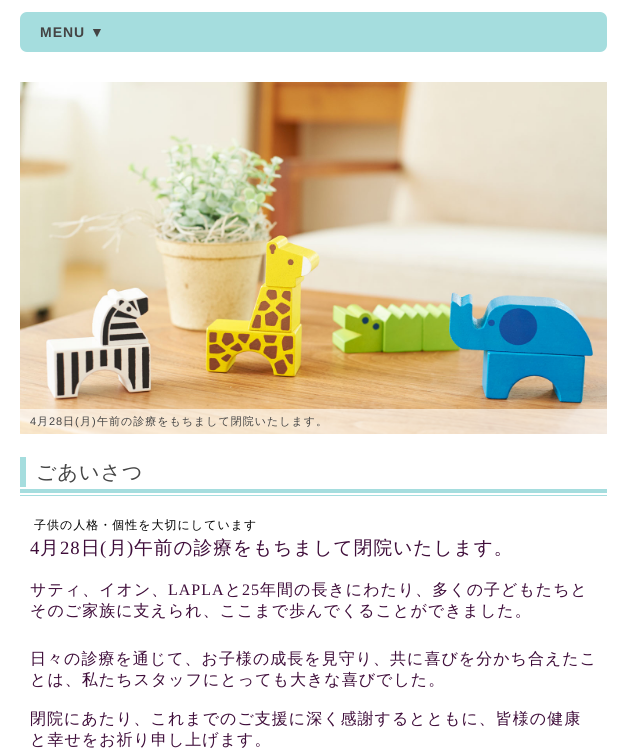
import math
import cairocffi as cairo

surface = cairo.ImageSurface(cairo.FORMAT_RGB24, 627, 750)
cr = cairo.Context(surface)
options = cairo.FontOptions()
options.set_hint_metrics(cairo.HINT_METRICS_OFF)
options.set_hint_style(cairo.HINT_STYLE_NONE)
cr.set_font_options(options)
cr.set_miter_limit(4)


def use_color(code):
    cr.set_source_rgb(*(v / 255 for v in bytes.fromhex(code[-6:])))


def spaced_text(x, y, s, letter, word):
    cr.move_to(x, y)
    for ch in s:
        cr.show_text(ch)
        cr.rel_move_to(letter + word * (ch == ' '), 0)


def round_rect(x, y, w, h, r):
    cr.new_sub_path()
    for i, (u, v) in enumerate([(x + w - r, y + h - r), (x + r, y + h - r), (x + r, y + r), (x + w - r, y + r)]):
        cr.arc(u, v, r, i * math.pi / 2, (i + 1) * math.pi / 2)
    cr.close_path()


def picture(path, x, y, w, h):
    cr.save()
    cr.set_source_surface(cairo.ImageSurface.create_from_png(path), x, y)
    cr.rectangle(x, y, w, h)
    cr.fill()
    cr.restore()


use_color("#ffffff")
cr.paint()
use_color("#a5ddde")
round_rect(20, 12, 587, 40, 7)
cr.fill()
cr.select_font_face("Liberation Sans", cairo.FONT_SLANT_NORMAL, cairo.FONT_WEIGHT_BOLD)
cr.set_font_size(14)
use_color("#444444")
spaced_text(40, 37, "MENU ▼", 1, 0)
picture("img1.png", 20, 82, 587, 352)
cr.set_source_rgba(1, 1, 1, 0.6)
cr.rectangle(20, 409, 587, 25)
cr.fill()
cr.select_font_face("Liberation Sans")
cr.set_font_size(11)
use_color("#444444")
spaced_text(30, 425, "4", 1, 0)
cr.select_font_face("WenQuanYi Zen Hei Medium")
spaced_text(37, 425, "月", 1, 0)
cr.select_font_face("Liberation Sans")
spaced_text(49, 425, "28", 1, 0)
cr.select_font_face("WenQuanYi Zen Hei Medium")
spaced_text(63, 425, "日", 1, 0)
cr.select_font_face("Liberation Sans")
spaced_text(75, 425, "(", 1, 0)
cr.select_font_face("WenQuanYi Zen Hei Medium")
spaced_text(80, 425, "月", 1, 0)
cr.select_font_face("Liberation Sans")
spaced_text(92, 425, ")", 1, 0)
cr.select_font_face("WenQuanYi Zen Hei Medium")
spaced_text(97, 425, "午前の診療をもちまして閉院いたします。", 1, 0)
use_color("#a5ddde")
cr.rectangle(20, 457, 6, 30)
cr.fill()
cr.set_font_size(20)
use_color("#444444")
spaced_text(36, 479, "ごあいさつ", 1, 0)
use_color("#a5ddde")
cr.rectangle(20, 489, 587, 4)
cr.fill()
cr.rectangle(20, 495, 587, 1)
cr.fill()
cr.set_font_size(12)
use_color("#000000")
spaced_text(34, 529, "子供の人格・個性を大切にしています", 1, 0)
cr.select_font_face("Liberation Serif")
cr.set_font_size(18.7)
use_color("#3e0c39")
spaced_text(30, 554, "4", 1, 0)
cr.select_font_face("WenQuanYi Zen Hei Medium")
spaced_text(40, 554, "月", 1, 0)
cr.select_font_face("Liberation Serif")
spaced_text(60, 554, "28", 1, 0)
cr.select_font_face("WenQuanYi Zen Hei Medium")
spaced_text(81, 554, "日", 1, 0)
cr.select_font_face("Liberation Serif")
spaced_text(100, 554, "(", 1, 0)
cr.select_font_face("WenQuanYi Zen Hei Medium")
spaced_text(108, 554, "月", 1, 0)
cr.select_font_face("Liberation Serif")
spaced_text(127, 554, ")", 1, 0)
cr.select_font_face("WenQuanYi Zen Hei Medium")
spaced_text(134, 554, "午前の診療をもちまして閉院いたします。", 1, 0)
cr.set_font_size(16)
spaced_text(30, 595, "サティ、イオン、", 1, 0)
cr.select_font_face("Liberation Serif")
spaced_text(168, 595, "LAPLA", 1, 0)
cr.select_font_face("WenQuanYi Zen Hei Medium")
spaced_text(225, 595, "と", 1, 0)
cr.select_font_face("Liberation Serif")
spaced_text(242, 595, "25", 1, 0)
cr.select_font_face("WenQuanYi Zen Hei Medium")
spaced_text(260, 595, "年間の長きにわたり、多くの子どもたちと", 1, 0)
spaced_text(30, 616, "そのご家族に支えられ、ここまで歩んでくることができました。", 1, 0)
spaced_text(30, 664, "日々の診療を通じて、お子様の成長を見守り、共に喜びを分かち合えたこ", 1, 0)
spaced_text(30, 685, "とは、私たちスタッフにとっても大きな喜びでした。", 1, 0)
spaced_text(30, 724, "閉院にあたり、これまでのご支援に深く感謝するとともに、皆様の健康", 1, 0)
spaced_text(30, 745, "と幸せをお祈り申し上げます。", 1, 0)
surface.write_to_png("result.png")
